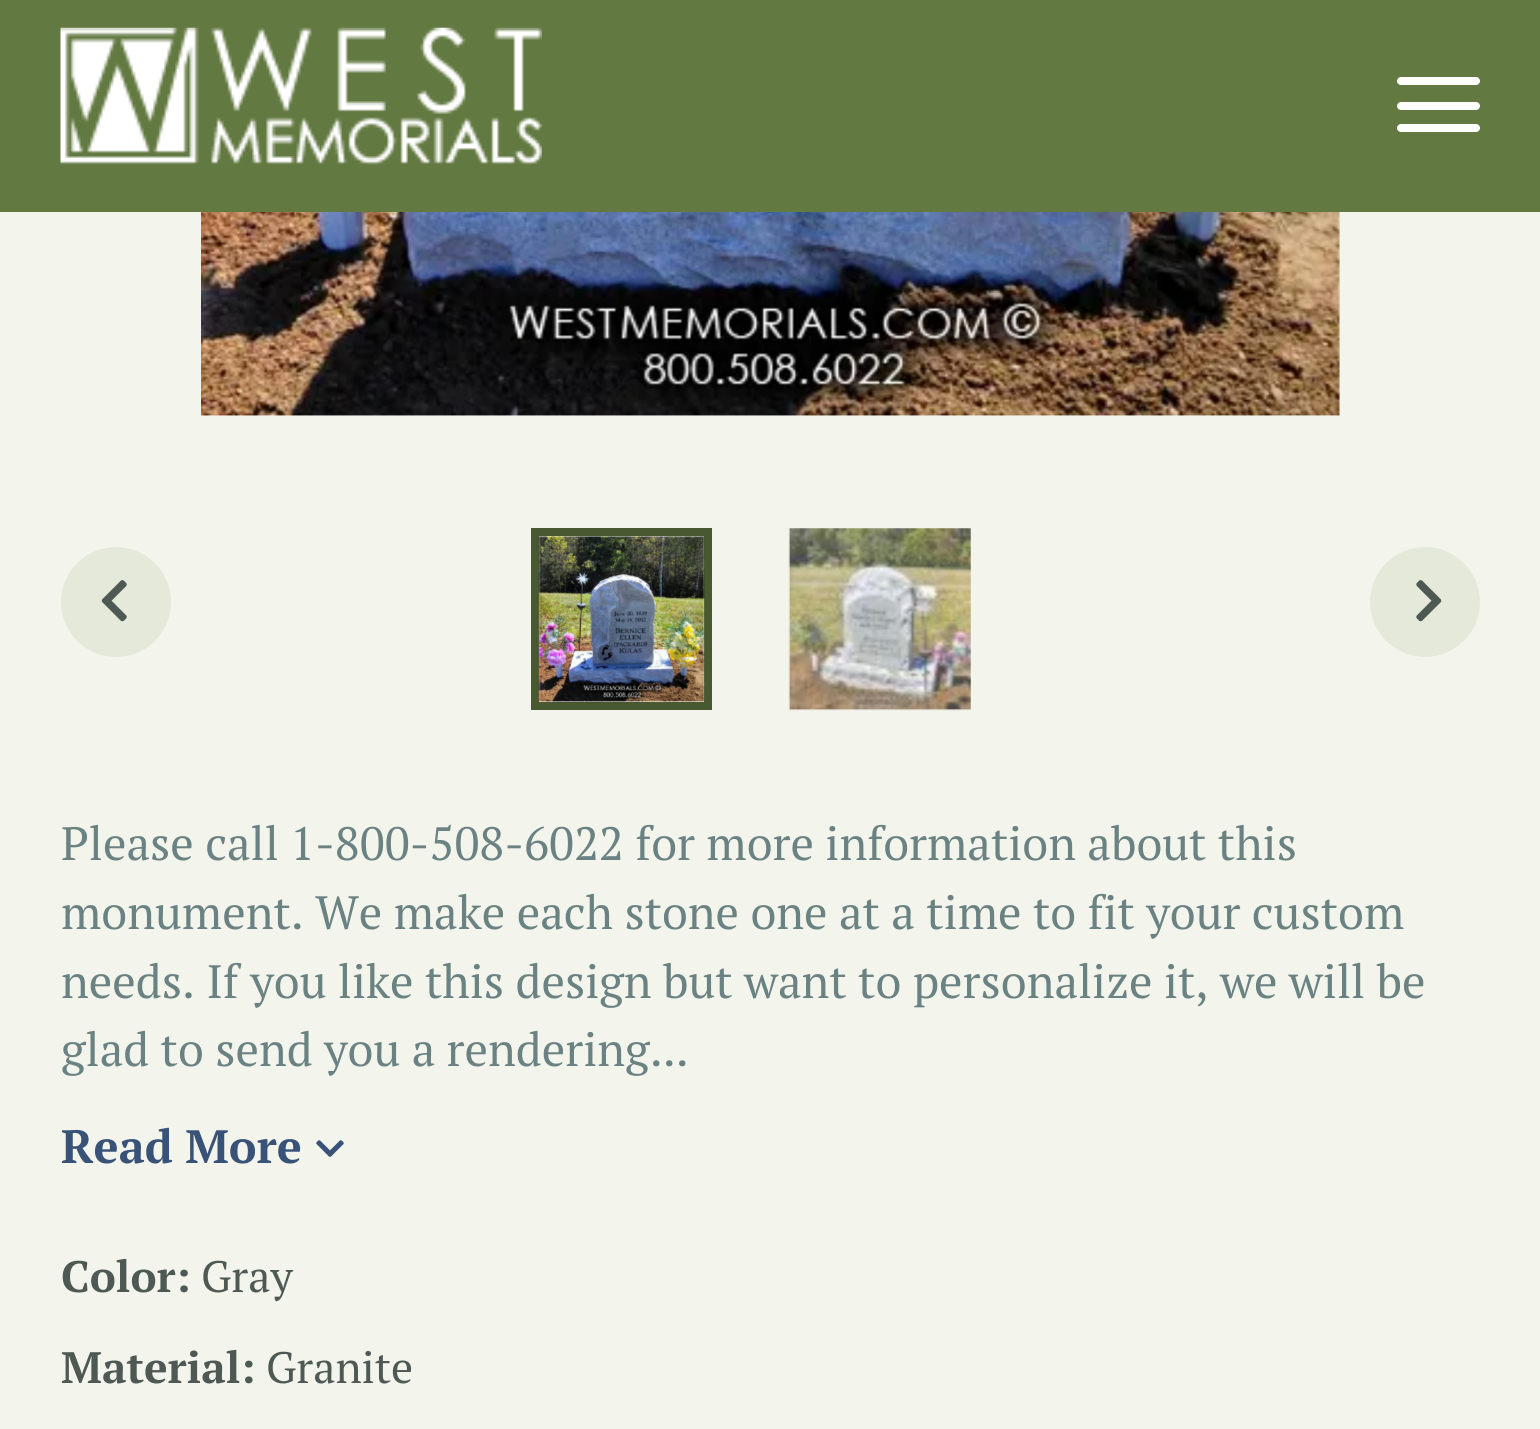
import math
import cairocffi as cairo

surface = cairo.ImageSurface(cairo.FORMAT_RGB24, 1540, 1429)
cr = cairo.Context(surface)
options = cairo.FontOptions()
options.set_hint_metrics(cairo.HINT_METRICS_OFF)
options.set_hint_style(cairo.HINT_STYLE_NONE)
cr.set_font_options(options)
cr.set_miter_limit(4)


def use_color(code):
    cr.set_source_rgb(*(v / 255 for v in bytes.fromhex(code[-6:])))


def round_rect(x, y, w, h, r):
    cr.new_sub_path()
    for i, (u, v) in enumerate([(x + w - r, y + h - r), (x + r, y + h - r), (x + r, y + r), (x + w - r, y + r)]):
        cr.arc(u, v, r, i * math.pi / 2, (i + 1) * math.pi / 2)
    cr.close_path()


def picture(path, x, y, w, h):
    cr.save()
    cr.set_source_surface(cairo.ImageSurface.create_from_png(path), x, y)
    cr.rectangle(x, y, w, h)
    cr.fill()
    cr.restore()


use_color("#f3f5ed")
cr.paint()
use_color("#637942")
cr.rectangle(0, 0, 1540, 212)
cr.fill()
picture("img1.png", 60, 27, 482, 138)
use_color("#ffffff")
round_rect(1397, 77, 83, 8, 4)
cr.fill()
round_rect(1397, 102, 83, 8, 4)
cr.fill()
round_rect(1397, 124, 83, 8, 4)
cr.fill()
picture("img2.png", 201, 212, 1139, 204)
use_color("#e5e9da")
cr.arc(116, 602, 55, 0, 2 * math.pi)
cr.fill()
picture("img3.png", 101, 580, 26, 42)
cr.arc(1425, 602, 55, 0, 2 * math.pi)
cr.fill()
picture("img4.png", 1416, 580, 26, 42)
cr.rectangle(535, 532, 173, 174)
use_color("#485830")
cr.set_line_width(8)
cr.stroke()
picture("img5.png", 538, 536, 167, 167)
picture("img6.png", 788, 528, 183, 183)
cr.select_font_face("PT Serif")
cr.set_font_size(46.75)
use_color("#6b8282")
cr.move_to(61, 860)
cr.show_text("Please call 1-800-508-6022 for more information about this")
cr.move_to(61, 929)
cr.show_text("monument. We make each stone one at a time to fit your custom")
cr.move_to(61, 998)
cr.show_text("needs. If you like this design but want to personalize it, we will be")
cr.move_to(61, 1066)
cr.show_text("glad to send you a rendering...")
cr.select_font_face("PT Serif", cairo.FONT_SLANT_NORMAL, cairo.FONT_WEIGHT_BOLD)
use_color("#395378")
cr.move_to(61, 1163)
cr.show_text("Read More")
picture("img7.png", 316, 1140, 28, 17)
cr.set_font_size(44)
use_color("#4f5954")
cr.move_to(61, 1292)
cr.show_text("Color:")
cr.select_font_face("PT Serif")
cr.move_to(201, 1292)
cr.show_text("Gray")
cr.select_font_face("PT Serif", cairo.FONT_SLANT_NORMAL, cairo.FONT_WEIGHT_BOLD)
cr.move_to(61, 1383)
cr.show_text("Material:")
cr.select_font_face("PT Serif")
cr.move_to(266, 1383)
cr.show_text("Granite")
surface.write_to_png("result.png")
